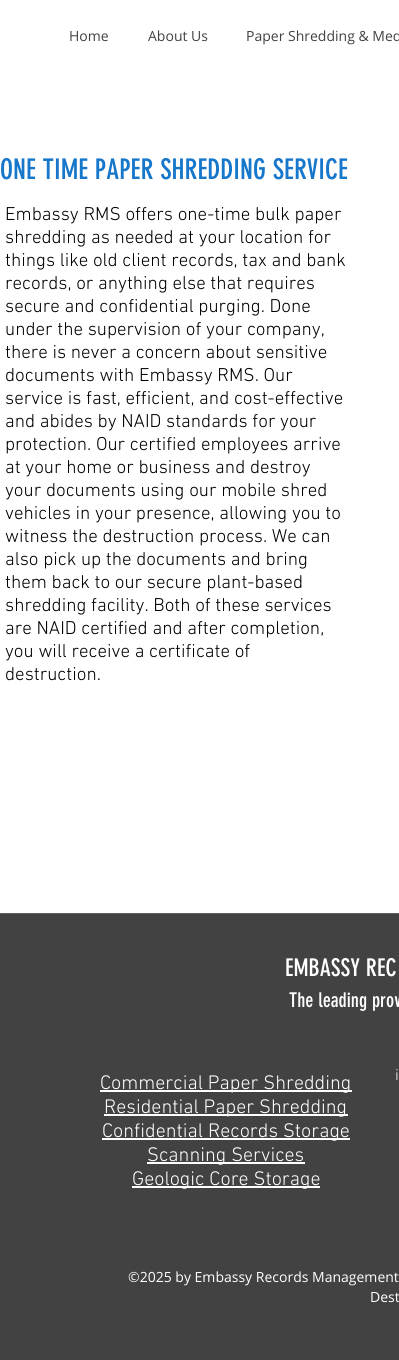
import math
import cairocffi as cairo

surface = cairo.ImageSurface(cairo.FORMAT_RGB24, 399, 1360)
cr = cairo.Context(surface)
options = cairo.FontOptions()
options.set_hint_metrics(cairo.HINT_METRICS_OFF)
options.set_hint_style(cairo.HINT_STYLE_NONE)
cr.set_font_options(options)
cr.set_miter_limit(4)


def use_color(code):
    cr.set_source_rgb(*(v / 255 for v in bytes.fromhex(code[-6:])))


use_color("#ffffff")
cr.paint()
cr.select_font_face("Open Sans")
cr.set_font_size(14)
use_color("#424242")
cr.move_to(69, 41)
cr.show_text("Home")
cr.move_to(148, 41)
cr.show_text("About Us")
cr.move_to(246, 41)
cr.show_text("Paper Shredding & Med")
cr.select_font_face("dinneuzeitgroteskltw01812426")
cr.set_font_size(28)
use_color("#1777cb")
cr.move_to(0, 179)
cr.show_text("ONE TIME PAPER SHREDDING SERVICE")
cr.select_font_face("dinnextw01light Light")
cr.set_font_size(19)
use_color("#000000")
cr.move_to(5, 220)
cr.show_text("Embassy RMS offers one-time bulk paper")
cr.move_to(5, 243)
cr.show_text("shredding as needed at your location for")
cr.move_to(5, 266)
cr.show_text("things like old client records, tax and bank")
cr.move_to(5, 289)
cr.show_text("records, or anything else that requires")
cr.move_to(5, 312)
cr.show_text("secure and confidential purging. Done")
cr.move_to(5, 335)
cr.show_text("under the supervision of your company,")
cr.move_to(5, 358)
cr.show_text("there is never a concern about sensitive")
cr.move_to(5, 381)
cr.show_text("documents with Embassy RMS. Our")
cr.move_to(5, 404)
cr.show_text("service is fast, efficient, and cost-effective")
cr.move_to(5, 427)
cr.show_text("and abides by NAID standards for your")
cr.move_to(5, 450)
cr.show_text("protection. Our certified employees arrive")
cr.move_to(5, 473)
cr.show_text("at your home or business and destroy")
cr.move_to(5, 496)
cr.show_text("your documents using our mobile shred")
cr.move_to(5, 519)
cr.show_text("vehicles in your presence, allowing you to")
cr.move_to(5, 542)
cr.show_text("witness the destruction process. We can")
cr.move_to(5, 565)
cr.show_text("also pick up the documents and bring")
cr.move_to(5, 588)
cr.show_text("them back to our secure plant-based")
cr.move_to(5, 611)
cr.show_text("shredding facility. Both of these services")
cr.move_to(5, 634)
cr.show_text("are NAID certified and after completion,")
cr.move_to(5, 657)
cr.show_text("you will receive a certificate of")
cr.move_to(5, 680)
cr.show_text("destruction.")
use_color("#424242")
cr.rectangle(0, 914, 399, 446)
cr.fill()
use_color("#5e5e5e")
cr.rectangle(0, 913, 399, 1)
cr.fill()
cr.select_font_face("dinneuzeitgroteskltw01812426")
cr.set_font_size(24)
use_color("#ffffff")
cr.move_to(285, 976)
cr.show_text("EMBASSY REC")
cr.set_font_size(20)
cr.move_to(289, 1007)
cr.show_text("The leading prov")
cr.rectangle(100, 1090, 252, 2)
cr.fill()
cr.select_font_face("dinnextw01light Light")
cr.move_to(100, 1089)
cr.show_text("Commercial Paper Shredding")
cr.rectangle(104, 1114, 244, 2)
cr.fill()
cr.move_to(104, 1113)
cr.show_text("Residential Paper Shredding")
cr.rectangle(102, 1138, 248, 2)
cr.fill()
cr.move_to(102, 1137)
cr.show_text("Confidential Records Storage")
cr.rectangle(147, 1162, 158, 2)
cr.fill()
cr.move_to(147, 1161)
cr.show_text("Scanning Services")
cr.rectangle(132, 1186, 188, 2)
cr.fill()
cr.move_to(132, 1185)
cr.show_text("Geologic Core Storage")
cr.set_font_size(16)
cr.move_to(395, 1080)
cr.show_text("i")
cr.select_font_face("Open Sans")
cr.set_font_size(14)
cr.move_to(128, 1282)
cr.show_text("©2025 by Embassy Records Management")
cr.move_to(370, 1302)
cr.show_text("Dest")
surface.write_to_png("result.png")
